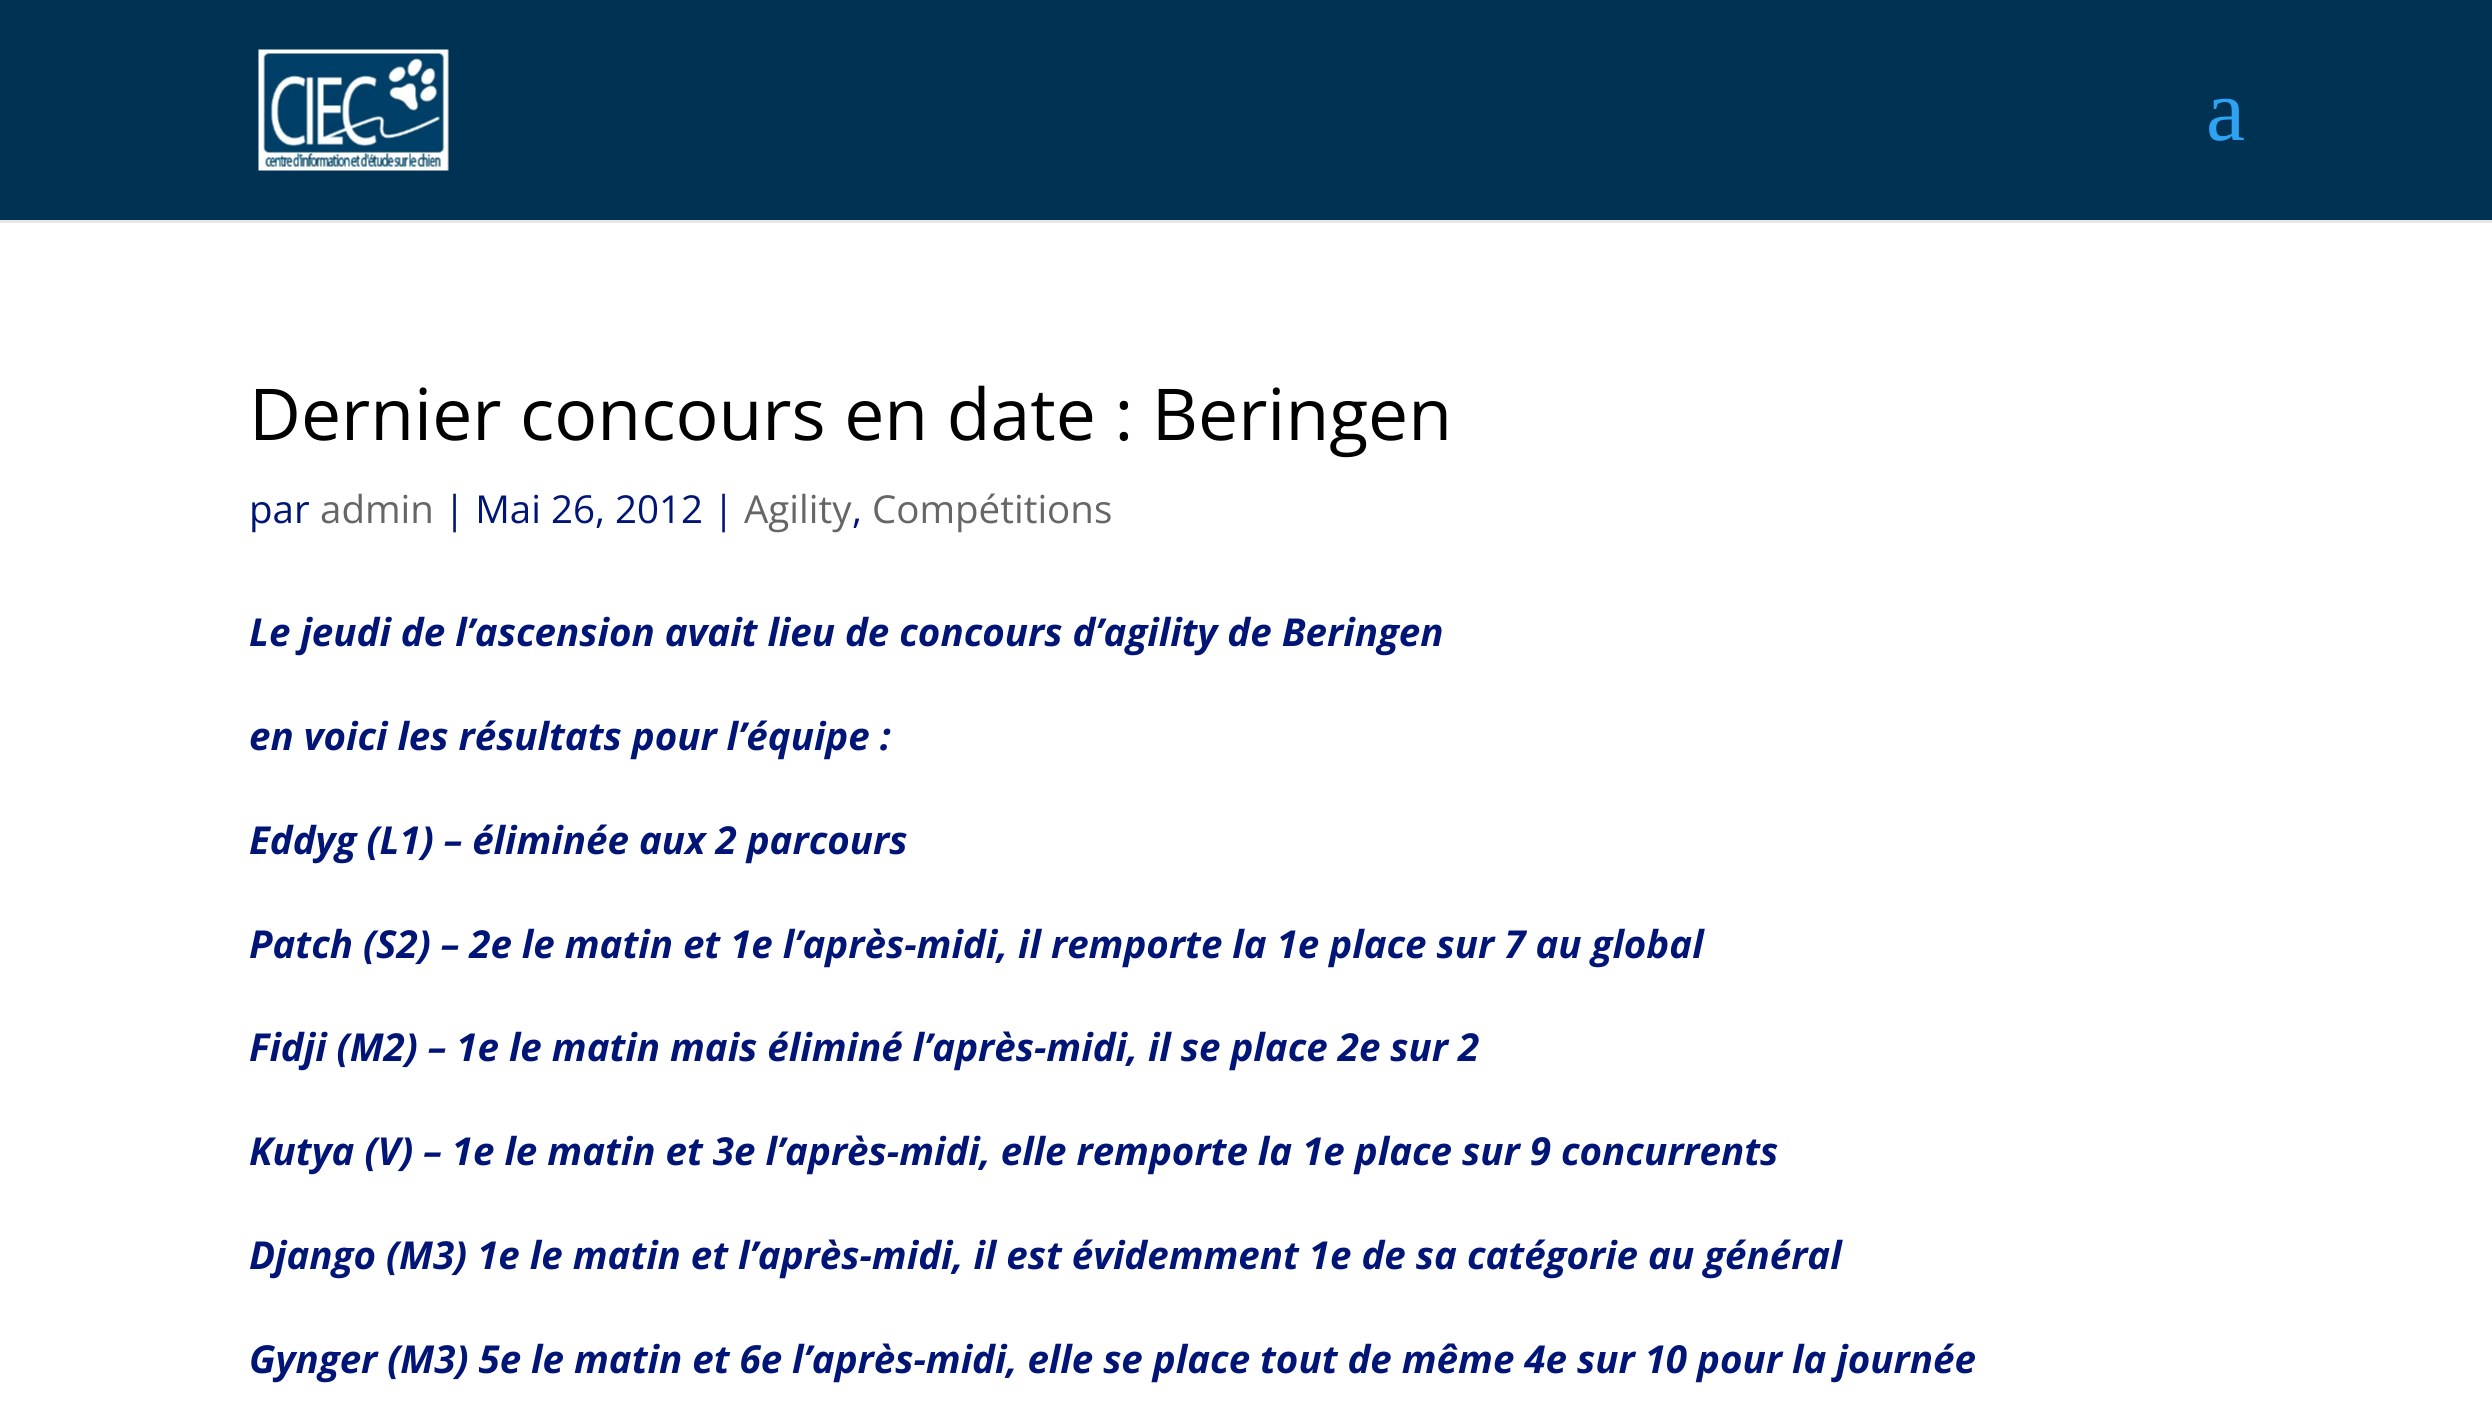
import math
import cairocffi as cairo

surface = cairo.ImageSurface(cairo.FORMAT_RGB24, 2492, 1417)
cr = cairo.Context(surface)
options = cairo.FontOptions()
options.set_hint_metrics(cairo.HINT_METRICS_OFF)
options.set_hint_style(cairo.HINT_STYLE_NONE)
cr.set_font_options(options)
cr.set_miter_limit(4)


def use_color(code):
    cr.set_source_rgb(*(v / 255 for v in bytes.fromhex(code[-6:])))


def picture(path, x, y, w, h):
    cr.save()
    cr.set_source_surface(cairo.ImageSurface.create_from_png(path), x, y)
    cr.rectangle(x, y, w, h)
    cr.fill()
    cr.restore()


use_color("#ffffff")
cr.paint()
use_color("#e6e6e6")
cr.rectangle(0, 220, 2492, 3)
cr.fill()
use_color("#003254")
cr.rectangle(0, 0, 2492, 220)
cr.fill()
picture("img1.png", 258, 49, 191, 122)
cr.select_font_face("Liberation Serif")
cr.set_font_size(88)
use_color("#2ea3f2")
cr.move_to(2206, 140)
cr.show_text("a")
cr.select_font_face("Open Sans")
cr.set_font_size(71.5)
use_color("#000000")
cr.move_to(249, 440)
cr.show_text("Dernier concours en date : Beringen")
cr.set_font_size(38.5)
use_color("#001575")
cr.move_to(249, 523)
cr.show_text("par")
use_color("#666666")
cr.move_to(320, 523)
cr.show_text("admin")
use_color("#001575")
cr.move_to(444, 523)
cr.show_text("| Mai 26, 2012 |")
use_color("#666666")
cr.move_to(744, 523)
cr.show_text("Agility")
use_color("#001575")
cr.move_to(852, 523)
cr.show_text(",")
use_color("#666666")
cr.move_to(872, 523)
cr.show_text("Compétitions")
cr.select_font_face("Open Sans", cairo.FONT_SLANT_ITALIC, cairo.FONT_WEIGHT_BOLD)
use_color("#001575")
cr.move_to(249, 646)
cr.show_text("Le jeudi de l’ascension avait lieu de concours d’agility de Beringen")
cr.move_to(249, 750)
cr.show_text("en voici les résultats pour l’équipe :")
cr.move_to(249, 854)
cr.show_text("Eddyg (L1) – éliminée aux 2 parcours")
cr.move_to(249, 958)
cr.show_text("Patch (S2) – 2e le matin et 1e l’après-midi, il remporte la 1e place sur 7 au global")
cr.move_to(249, 1061)
cr.show_text("Fidji (M2) – 1e le matin mais éliminé l’après-midi, il se place 2e sur 2")
cr.move_to(249, 1165)
cr.show_text("Kutya (V) – 1e le matin et 3e l’après-midi, elle remporte la 1e place sur 9 concurrents")
cr.move_to(249, 1269)
cr.show_text("Django (M3) 1e le matin et l’après-midi, il est évidemment 1e de sa catégorie au général")
cr.move_to(249, 1373)
cr.show_text("Gynger (M3) 5e le matin et 6e l’après-midi, elle se place tout de même 4e sur 10 pour la journée")
surface.write_to_png("result.png")
